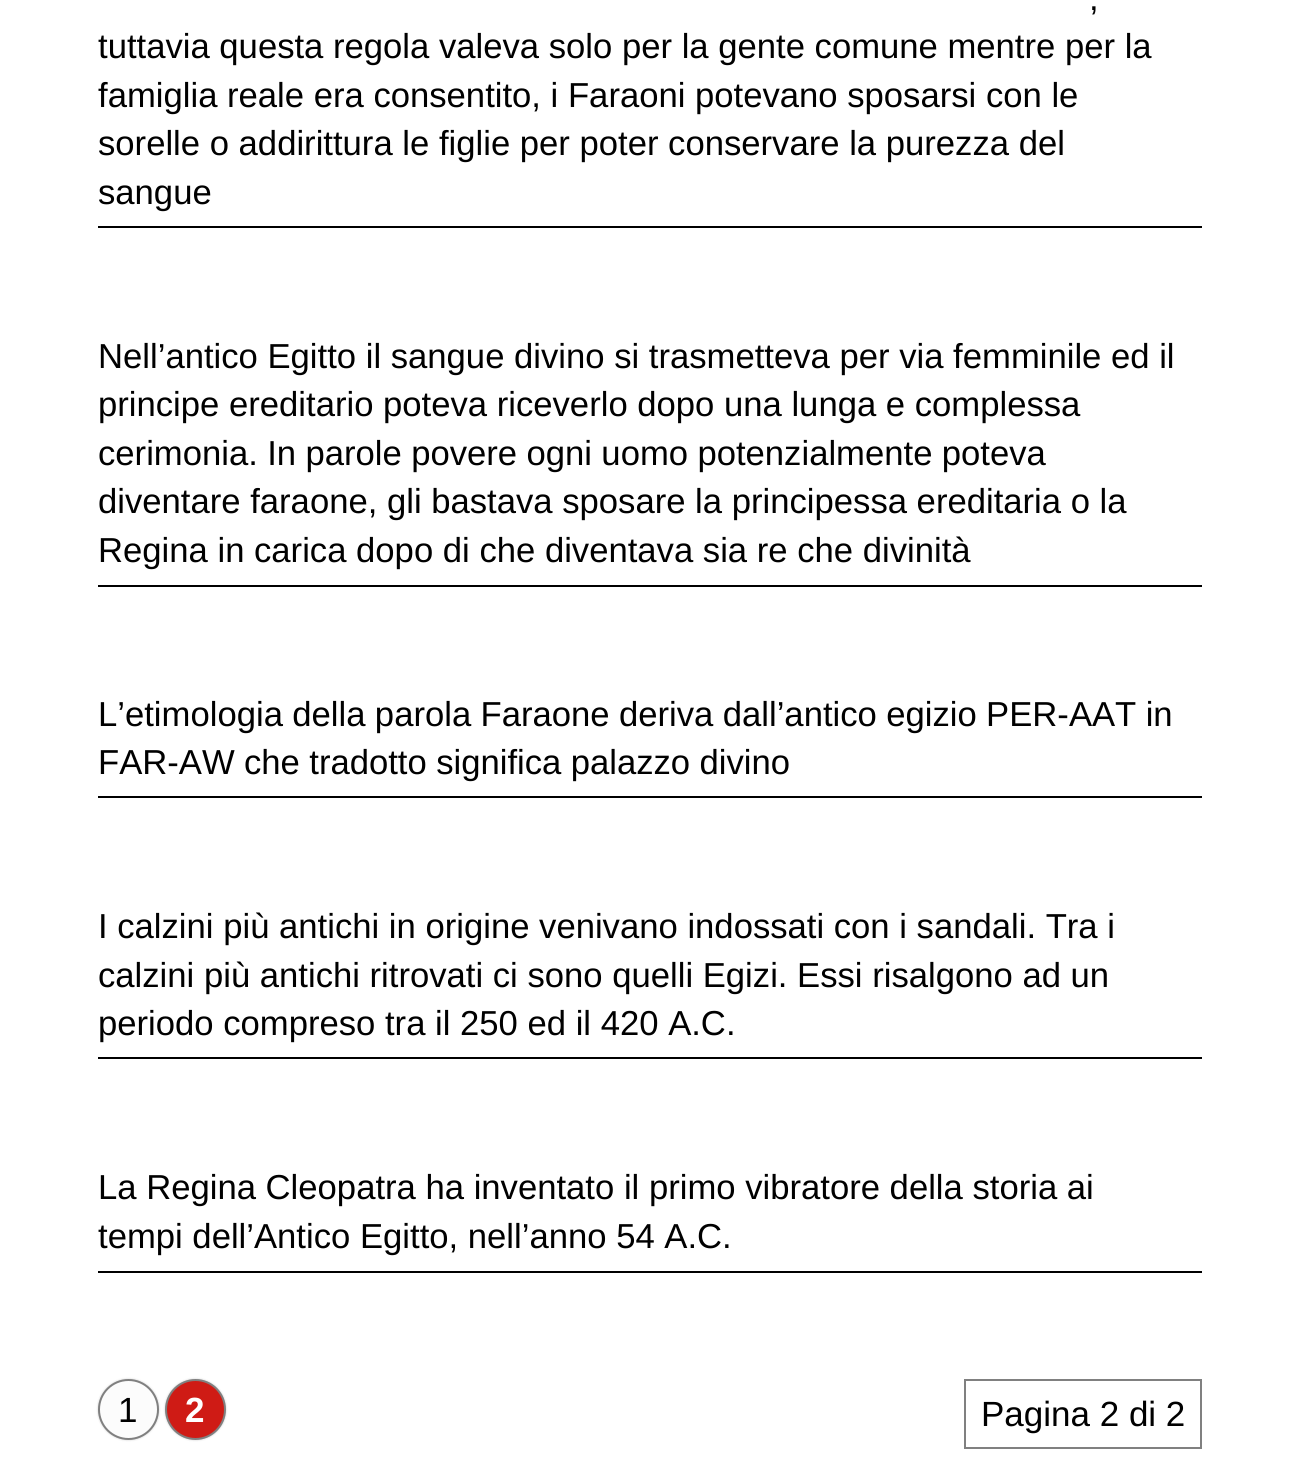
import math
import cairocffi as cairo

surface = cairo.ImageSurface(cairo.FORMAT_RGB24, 1300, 1466)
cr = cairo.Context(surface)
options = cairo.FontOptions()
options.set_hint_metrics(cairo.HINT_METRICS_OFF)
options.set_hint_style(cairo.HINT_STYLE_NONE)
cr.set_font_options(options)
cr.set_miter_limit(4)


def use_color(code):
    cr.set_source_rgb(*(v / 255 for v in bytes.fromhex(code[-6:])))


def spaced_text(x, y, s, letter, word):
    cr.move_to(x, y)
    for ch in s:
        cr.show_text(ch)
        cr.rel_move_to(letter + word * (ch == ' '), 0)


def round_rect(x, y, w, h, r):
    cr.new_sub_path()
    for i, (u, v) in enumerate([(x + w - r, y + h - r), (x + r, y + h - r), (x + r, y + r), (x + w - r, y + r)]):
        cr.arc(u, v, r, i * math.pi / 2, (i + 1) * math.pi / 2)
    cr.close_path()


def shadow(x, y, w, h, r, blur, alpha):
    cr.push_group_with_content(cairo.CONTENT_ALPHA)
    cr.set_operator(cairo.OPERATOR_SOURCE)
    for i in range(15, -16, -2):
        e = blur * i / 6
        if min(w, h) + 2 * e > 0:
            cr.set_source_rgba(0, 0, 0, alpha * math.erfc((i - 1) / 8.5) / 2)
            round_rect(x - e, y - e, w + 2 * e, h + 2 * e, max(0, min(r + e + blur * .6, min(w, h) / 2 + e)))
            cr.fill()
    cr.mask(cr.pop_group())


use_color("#ffffff")
cr.paint()
use_color("#000000")
cr.rectangle(98, 226, 1104, 2)
cr.fill()
cr.select_font_face("Liberation Sans")
cr.set_font_size(34.65)
cr.move_to(1089, 10)
cr.show_text(",")
cr.move_to(98, 58)
cr.show_text("tuttavia questa regola valeva solo per la gente comune mentre per la")
cr.move_to(98, 107)
cr.show_text("famiglia reale era consentito, i Faraoni potevano sposarsi con le")
cr.move_to(98, 155)
cr.show_text("sorelle o addirittura le figlie per poter conservare la purezza del")
cr.move_to(98, 204)
cr.show_text("sangue")
cr.rectangle(98, 585, 1104, 2)
cr.fill()
cr.move_to(98, 368)
cr.show_text("Nell’antico Egitto il sangue divino si trasmetteva per via femminile ed il")
cr.move_to(98, 416)
cr.show_text("principe ereditario poteva riceverlo dopo una lunga e complessa")
spaced_text(98, 465, "cerimonia. In parole povere ogni uomo potenzialmente poteva", 0, -0.25)
cr.move_to(98, 513)
cr.show_text("diventare faraone, gli bastava sposare la principessa ereditaria o la")
cr.move_to(98, 562)
cr.show_text("Regina in carica dopo di che diventava sia re che divinità")
cr.rectangle(98, 796, 1104, 2)
cr.fill()
spaced_text(98, 726, "L’etimologia della parola Faraone deriva dall’antico egizio PER-AAT in", 0, -0.25)
spaced_text(98, 774, "FAR-AW che tradotto significa palazzo divino", 0, -0.25)
cr.rectangle(98, 1057, 1104, 2)
cr.fill()
cr.move_to(98, 938)
cr.show_text("I calzini più antichi in origine venivano indossati con i sandali. Tra i")
cr.move_to(98, 987)
cr.show_text("calzini più antichi ritrovati ci sono quelli Egizi. Essi risalgono ad un")
cr.move_to(98, 1035)
cr.show_text("periodo compreso tra il 250 ed il 420 A.C.")
cr.rectangle(98, 1271, 1104, 2)
cr.fill()
cr.move_to(98, 1199)
cr.show_text("La Regina Cleopatra ha inventato il primo vibratore della storia ai")
cr.move_to(98, 1248)
cr.show_text("tempi dell’Antico Egitto, nell’anno 54 A.C.")
use_color("#000000")
shadow(98, 1379, 61, 61, 30.5, 1, 0.2)
use_color("#fcfcfc")
cr.arc(128.5, 1409.5, 29.5, 0, 2 * math.pi)
cr.fill_preserve()
use_color("#808080")
cr.stroke()
cr.set_font_size(35)
use_color("#000000")
cr.move_to(118, 1422)
cr.show_text("1")
use_color("#000000")
shadow(165, 1379, 61, 61, 30.5, 1, 0.2)
use_color("#cf1b15")
cr.arc(195.5, 1409.5, 29.5, 0, 2 * math.pi)
cr.fill_preserve()
use_color("#808080")
cr.stroke()
cr.select_font_face("Liberation Sans", cairo.FONT_SLANT_NORMAL, cairo.FONT_WEIGHT_BOLD)
use_color("#ffffff")
cr.move_to(185, 1422)
cr.show_text("2")
cr.rectangle(965, 1380, 236, 68)
use_color("#808080")
cr.stroke()
cr.select_font_face("Liberation Sans")
use_color("#000000")
cr.move_to(981, 1426)
cr.show_text("Pagina 2 di 2")
surface.write_to_png("result.png")
